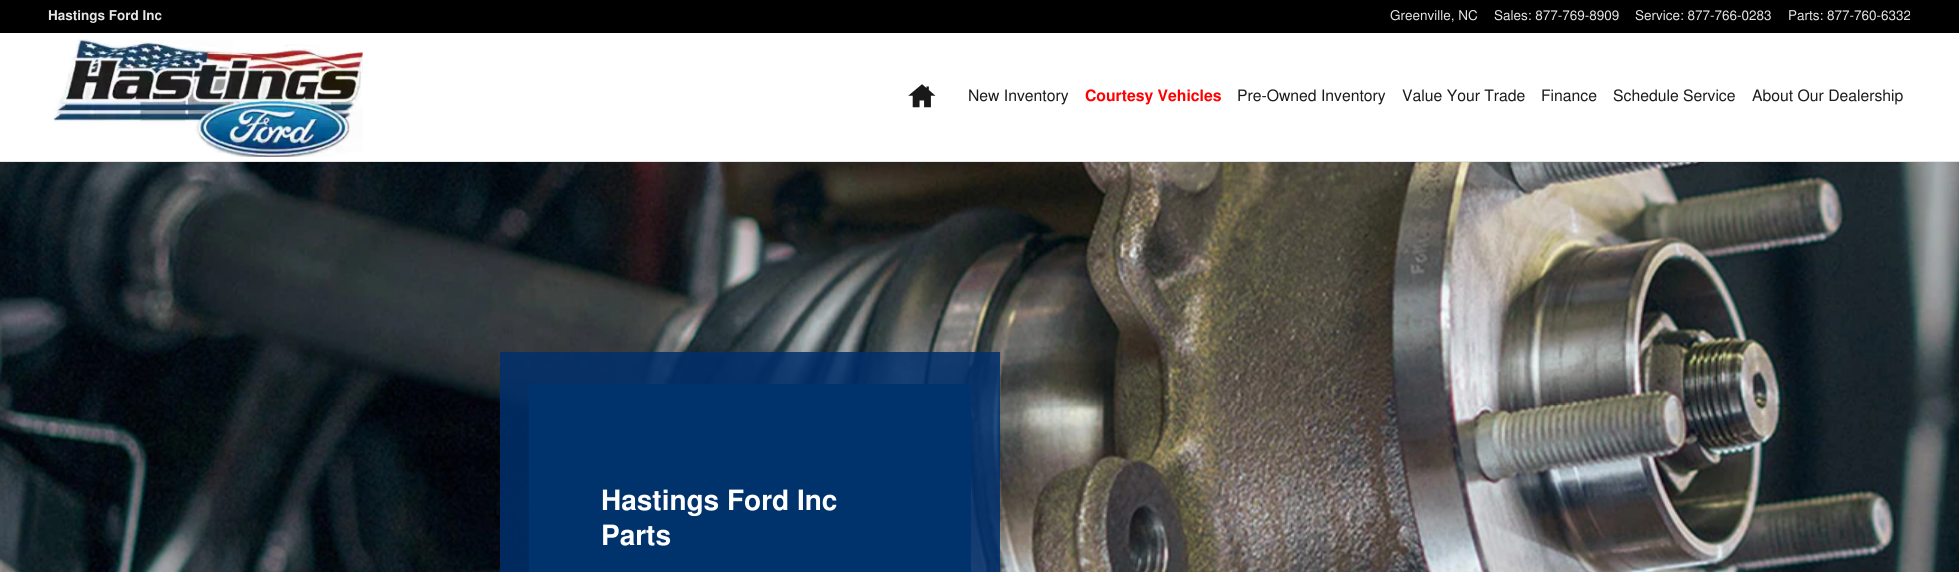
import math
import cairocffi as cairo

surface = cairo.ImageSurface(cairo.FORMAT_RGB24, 1959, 572)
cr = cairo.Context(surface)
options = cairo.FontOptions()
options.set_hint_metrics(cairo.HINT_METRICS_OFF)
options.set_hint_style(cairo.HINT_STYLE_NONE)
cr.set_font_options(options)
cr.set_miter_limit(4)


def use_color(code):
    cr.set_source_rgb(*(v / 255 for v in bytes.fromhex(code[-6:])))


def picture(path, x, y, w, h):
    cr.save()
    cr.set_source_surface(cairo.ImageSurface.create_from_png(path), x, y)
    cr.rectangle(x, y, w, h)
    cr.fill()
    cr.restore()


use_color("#ffffff")
cr.paint()
use_color("#e6e6e6")
cr.rectangle(0, 161, 1959, 1)
cr.fill()
use_color("#000000")
cr.rectangle(0, 0, 1959, 33)
cr.fill()
cr.select_font_face("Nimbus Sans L", cairo.FONT_SLANT_NORMAL, cairo.FONT_WEIGHT_BOLD)
cr.set_font_size(13.5)
use_color("#e6e6e6")
cr.move_to(48, 20)
cr.show_text("Hastings Ford Inc")
cr.select_font_face("Nimbus Sans L")
cr.move_to(1390, 20)
cr.show_text("Greenville, NC")
cr.move_to(1494, 20)
cr.show_text("Sales: 877-769-8909")
cr.move_to(1635, 20)
cr.show_text("Service: 877-766-0283")
cr.move_to(1788, 20)
cr.show_text("Parts: 877-760-6332")
picture("img1.png", 53, 39, 310, 118)
picture("img2.png", 908, 84, 28, 24)
cr.set_font_size(15.75)
use_color("#1a1a1a")
cr.move_to(968, 101)
cr.show_text("New Inventory")
cr.select_font_face("Nimbus Sans L", cairo.FONT_SLANT_NORMAL, cairo.FONT_WEIGHT_BOLD)
use_color("#ff0000")
cr.move_to(1085, 101)
cr.show_text("Courtesy Vehicles")
cr.select_font_face("Nimbus Sans L")
use_color("#1a1a1a")
cr.move_to(1237, 101)
cr.show_text("Pre-Owned Inventory")
cr.move_to(1402, 101)
cr.show_text("Value Your Trade")
cr.move_to(1541, 101)
cr.show_text("Finance")
cr.move_to(1613, 101)
cr.show_text("Schedule Service")
cr.move_to(1752, 101)
cr.show_text("About Our Dealership")
picture("img3.png", 0, 162, 1959, 410)
cr.set_source_rgba(0, 0.184, 0.424, 0.85)
cr.rectangle(500, 352, 500, 220)
cr.fill()
use_color("#00326b")
cr.rectangle(529, 384, 442, 188)
cr.fill()
cr.select_font_face("Nimbus Sans L", cairo.FONT_SLANT_NORMAL, cairo.FONT_WEIGHT_BOLD)
cr.set_font_size(28)
use_color("#ffffff")
cr.move_to(601, 510)
cr.show_text("Hastings Ford Inc")
cr.move_to(601, 545)
cr.show_text("Parts")
surface.write_to_png("result.png")
